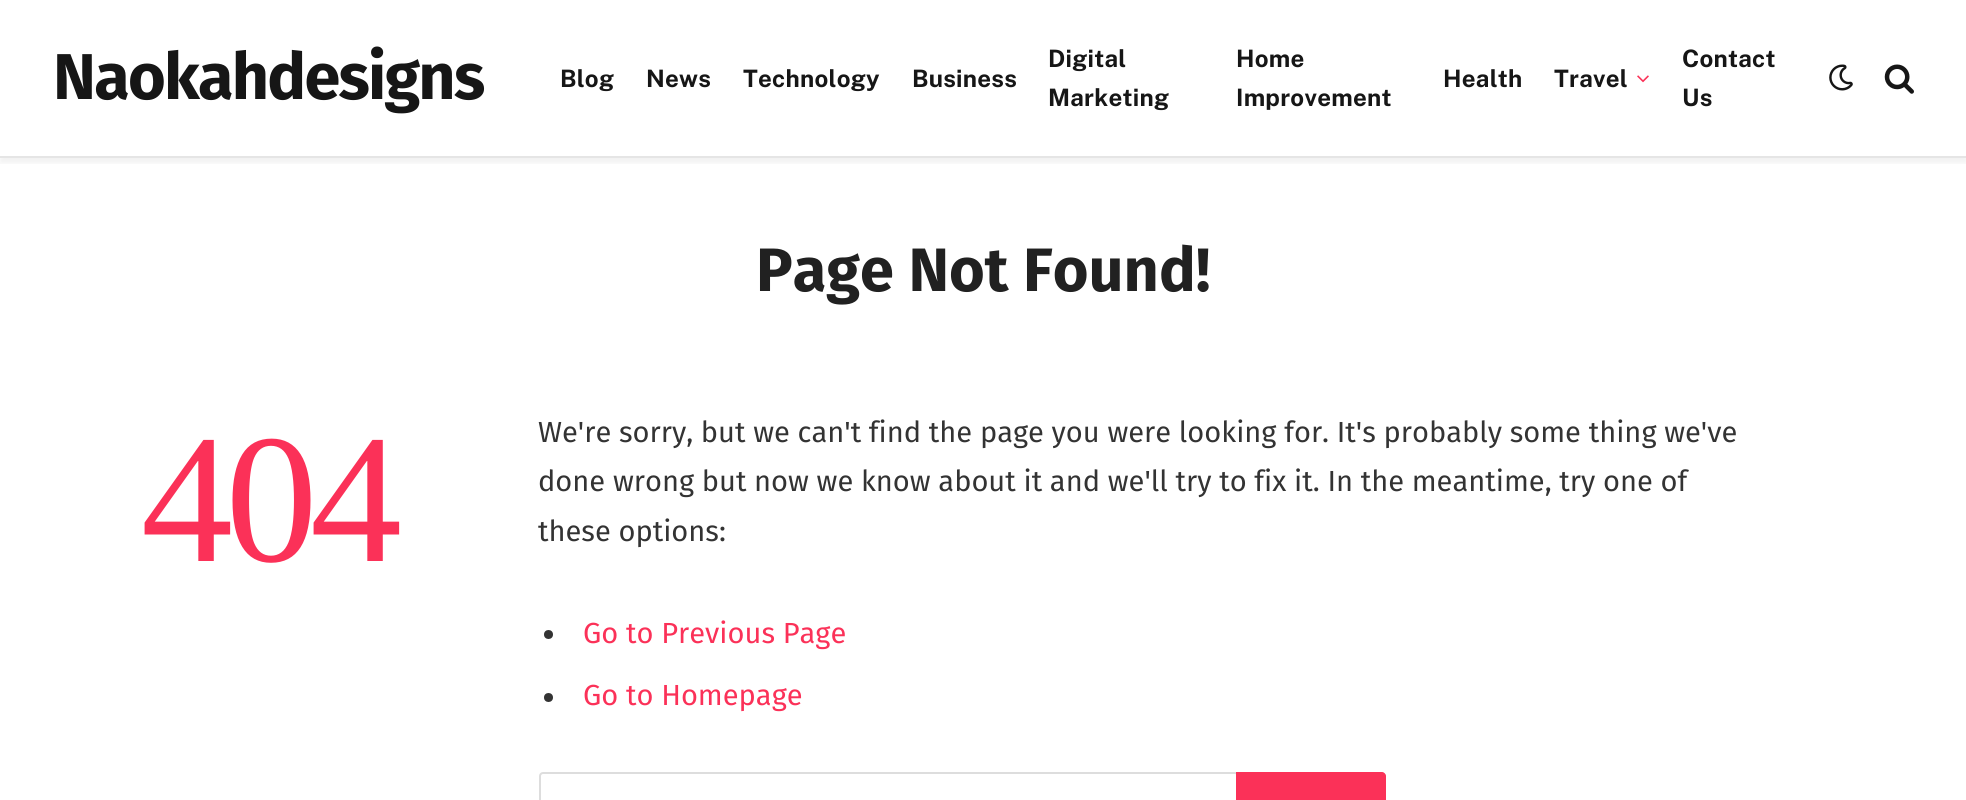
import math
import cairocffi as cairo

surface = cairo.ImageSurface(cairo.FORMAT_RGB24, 1966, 800)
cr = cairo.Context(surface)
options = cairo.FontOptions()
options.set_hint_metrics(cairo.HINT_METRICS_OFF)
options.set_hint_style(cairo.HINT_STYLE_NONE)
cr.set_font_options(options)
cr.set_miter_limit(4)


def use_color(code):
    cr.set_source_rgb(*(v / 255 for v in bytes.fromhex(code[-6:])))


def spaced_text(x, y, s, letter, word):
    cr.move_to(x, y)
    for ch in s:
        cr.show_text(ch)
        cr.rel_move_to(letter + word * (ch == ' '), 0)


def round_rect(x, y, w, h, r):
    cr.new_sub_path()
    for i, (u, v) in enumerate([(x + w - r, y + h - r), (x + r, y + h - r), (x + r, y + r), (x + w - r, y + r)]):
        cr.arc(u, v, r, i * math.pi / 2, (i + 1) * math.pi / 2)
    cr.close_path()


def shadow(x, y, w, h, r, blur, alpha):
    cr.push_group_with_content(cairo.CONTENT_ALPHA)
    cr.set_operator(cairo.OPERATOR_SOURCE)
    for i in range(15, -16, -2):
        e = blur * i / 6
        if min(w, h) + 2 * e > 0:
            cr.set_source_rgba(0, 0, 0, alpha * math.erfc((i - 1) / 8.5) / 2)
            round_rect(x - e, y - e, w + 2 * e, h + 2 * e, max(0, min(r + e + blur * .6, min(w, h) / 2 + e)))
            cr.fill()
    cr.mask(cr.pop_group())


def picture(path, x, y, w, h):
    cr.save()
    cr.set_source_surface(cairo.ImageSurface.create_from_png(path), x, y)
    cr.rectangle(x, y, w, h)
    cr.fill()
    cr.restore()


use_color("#ffffff")
cr.paint()
cr.save()
cr.rectangle(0, 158, 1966, 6)
cr.clip()
use_color("#000000")
shadow(0, 5, 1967, 158, 0, 3.5, 0.06)
cr.restore()
use_color("#e5e5e5")
cr.rectangle(0, 156, 1966, 2)
cr.fill()
cr.select_font_face("Fira Sans", cairo.FONT_SLANT_NORMAL, cairo.FONT_WEIGHT_BOLD)
cr.set_font_size(64.75)
use_color("#161616")
spaced_text(53, 99, "Naokahdesigns", -1.75, 0)
cr.select_font_face("Public Sans", cairo.FONT_SLANT_NORMAL, cairo.FONT_WEIGHT_BOLD)
cr.set_font_size(24)
spaced_text(560, 87, "Blog", 0.25, 0)
spaced_text(646, 87, "News", 0.25, 0)
spaced_text(743, 87, "Technology", 0.25, 0)
spaced_text(912, 87, "Business", 0.25, 0)
spaced_text(1048, 67, "Digital", 0.25, 0)
spaced_text(1048, 106, "Marketing", 0.25, 0)
spaced_text(1236, 67, "Home", 0.25, 0)
spaced_text(1236, 106, "Improvement", 0.25, 0)
spaced_text(1443, 87, "Health", 0.25, 0)
spaced_text(1554, 87, "Travel", 0.25, 0)
picture("img1.png", 1637, 75, 12, 8)
spaced_text(1682, 67, "Contact", 0.25, 0)
spaced_text(1682, 106, "Us", 0.25, 0)
picture("img2.png", 1829, 64, 24, 27)
picture("img3.png", 1884, 64, 30, 30)
cr.select_font_face("Fira Sans", cairo.FONT_SLANT_NORMAL, cairo.FONT_WEIGHT_BOLD)
cr.set_font_size(61.25)
use_color("#212121")
cr.move_to(756, 291)
cr.show_text("Page Not Found!")
cr.select_font_face("Liberation Serif")
cr.set_font_size(184)
use_color("#fb3158")
spaced_text(141, 561, "404", -7.5, 0)
cr.select_font_face("Fira Sans")
cr.set_font_size(29.05)
use_color("#333333")
cr.move_to(538, 442)
cr.show_text("We're sorry, but we can't find the page you were looking for. It's probably some thing we've")
cr.move_to(538, 491)
cr.show_text("done wrong but now we know about it and we'll try to fix it. In the meantime, try one of")
cr.move_to(538, 541)
cr.show_text("these options:")
cr.new_path()
cr.arc(548.5, 634.5, 4.5, 0, 2 * math.pi)
cr.fill()
use_color("#fb3158")
cr.move_to(583, 643)
cr.show_text("Go to Previous Page")
use_color("#333333")
cr.new_path()
cr.arc(548.5, 697.5, 4.5, 0, 2 * math.pi)
cr.fill()
use_color("#fb3158")
cr.move_to(583, 705)
cr.show_text("Go to Homepage")
round_rect(540, 773, 698, 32, 3)
use_color("#dddddd")
cr.stroke()
use_color("#fb3158")
cr.new_path()
cr.move_to(1236, 772)
cr.line_to(1382, 772)
cr.curve_to(1384, 772, 1386, 774, 1386, 776)
cr.line_to(1386, 800)
cr.curve_to(1386, 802, 1384, 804, 1382, 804)
cr.line_to(1236, 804)
cr.close_path()
cr.fill()
surface.write_to_png("result.png")
